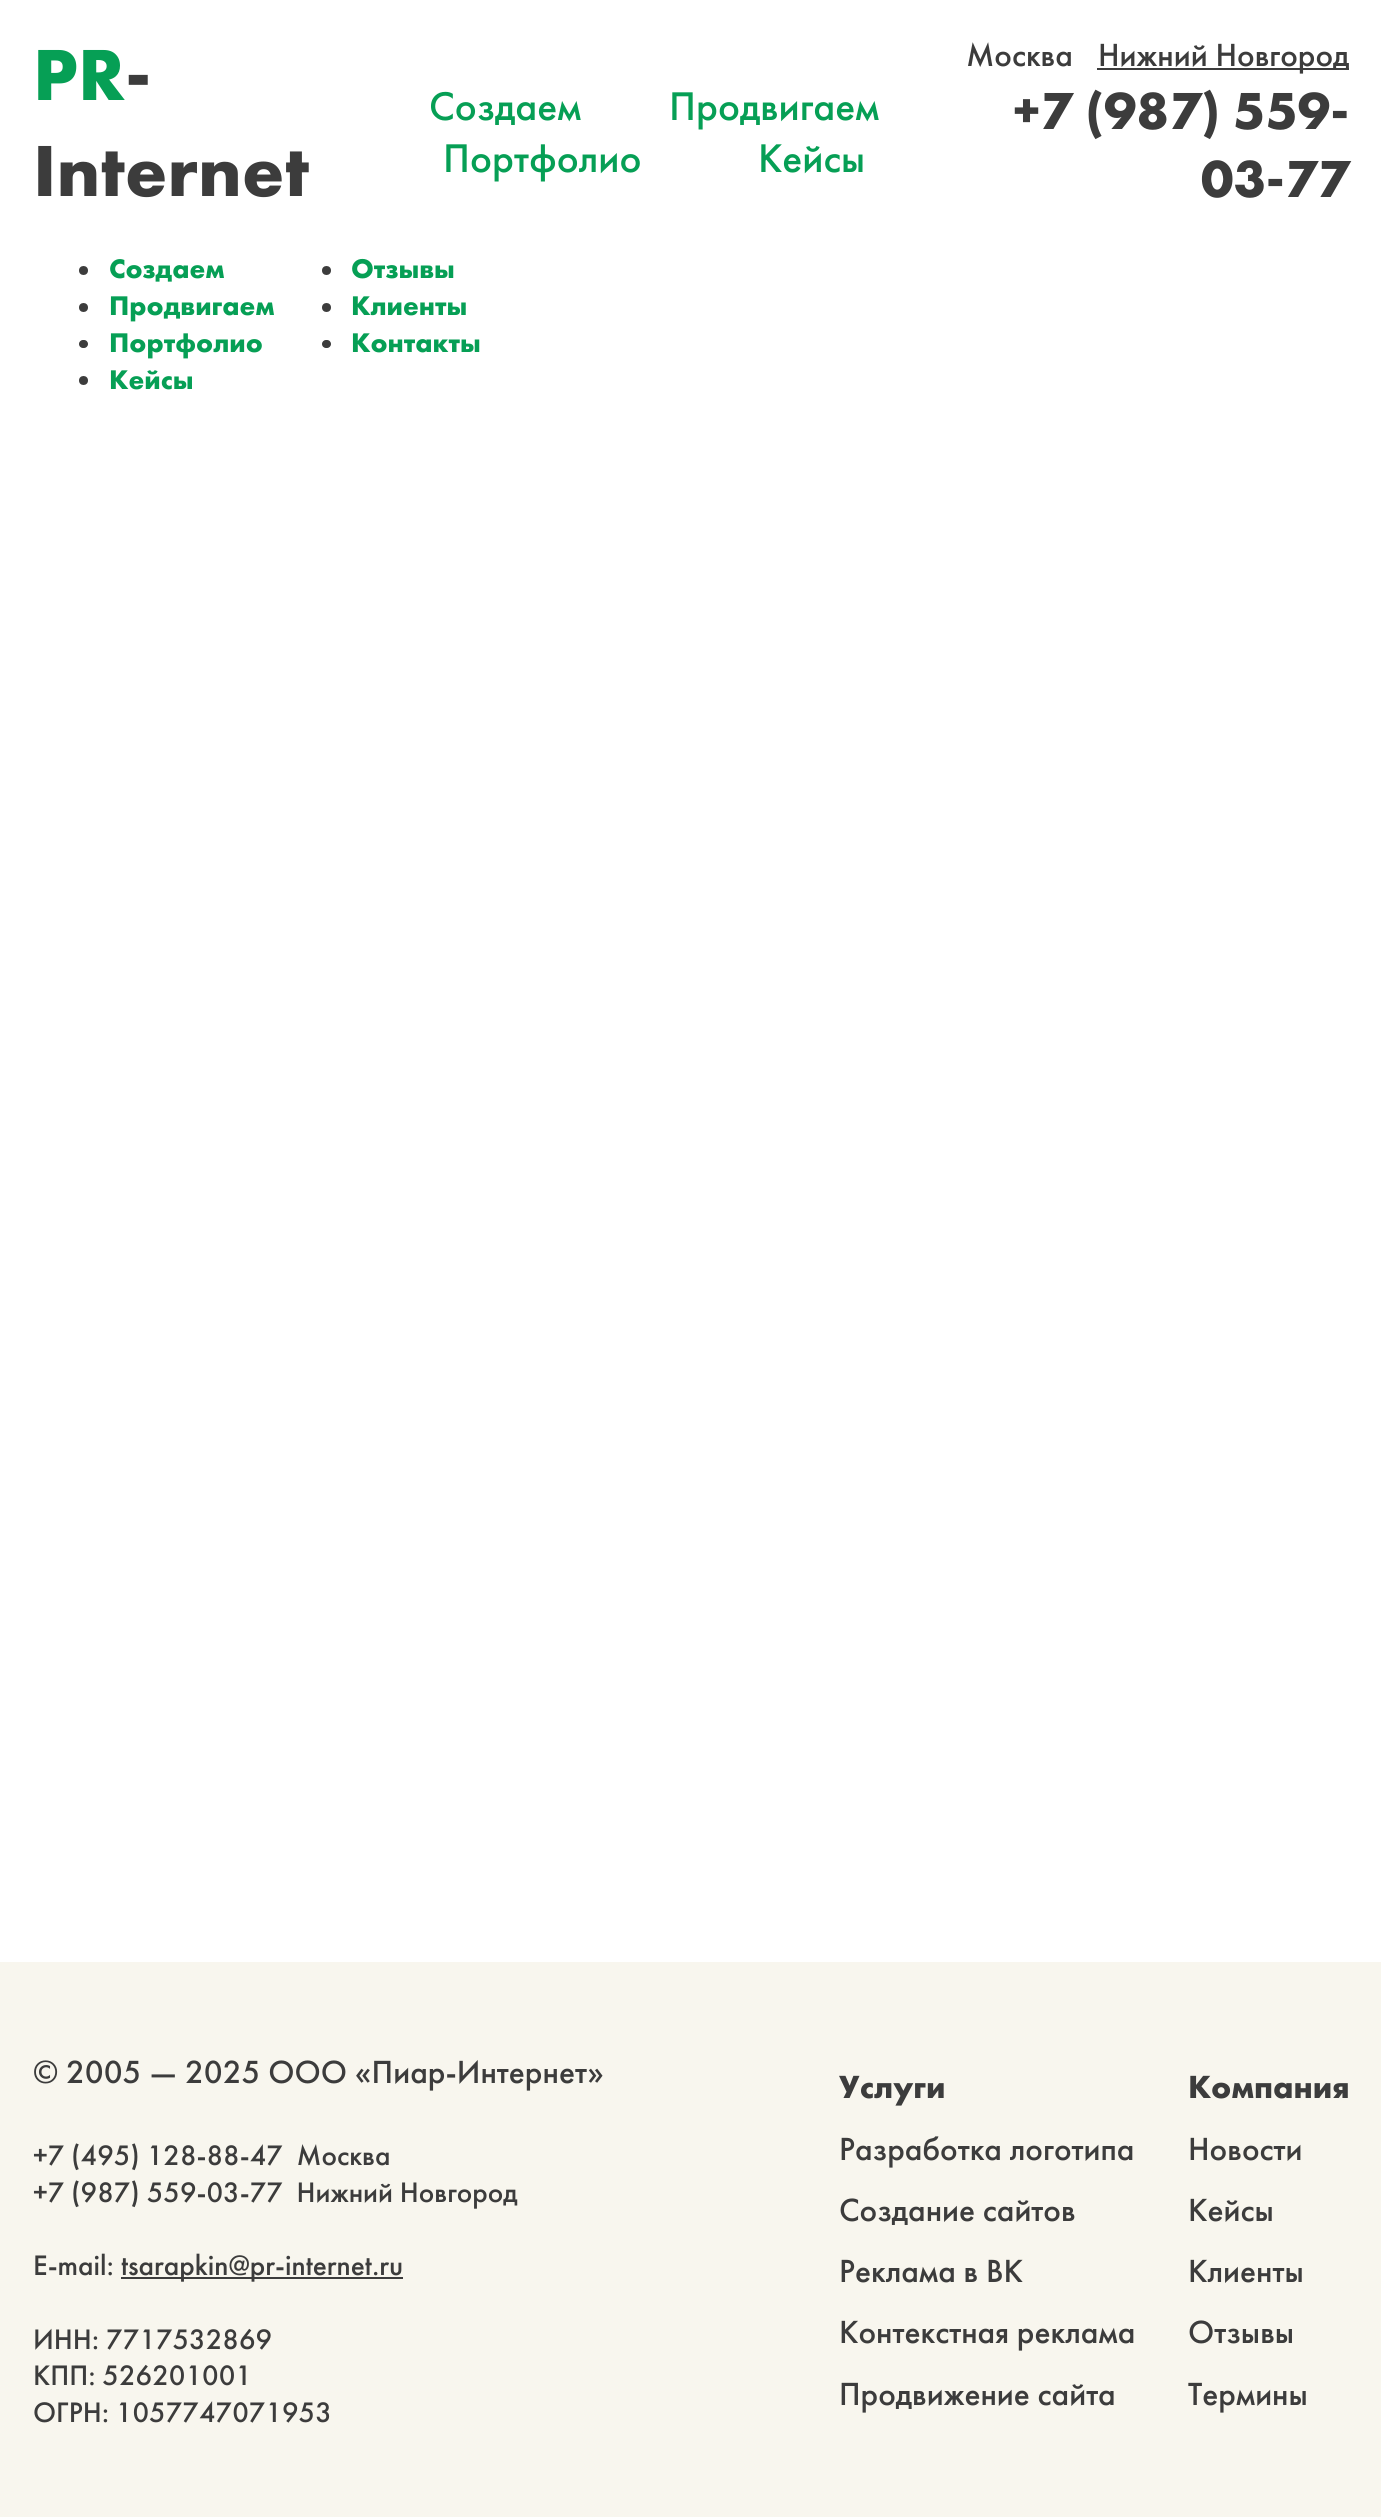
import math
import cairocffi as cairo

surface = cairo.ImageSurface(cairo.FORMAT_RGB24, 1381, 2517)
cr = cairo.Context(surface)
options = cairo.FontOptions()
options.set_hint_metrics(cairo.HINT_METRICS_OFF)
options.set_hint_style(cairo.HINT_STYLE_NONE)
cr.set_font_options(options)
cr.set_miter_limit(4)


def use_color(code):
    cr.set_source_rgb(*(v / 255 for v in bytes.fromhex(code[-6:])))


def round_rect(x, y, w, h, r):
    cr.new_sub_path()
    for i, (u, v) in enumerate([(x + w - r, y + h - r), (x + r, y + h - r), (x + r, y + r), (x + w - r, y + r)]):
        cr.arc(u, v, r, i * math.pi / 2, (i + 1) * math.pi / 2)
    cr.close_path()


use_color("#ffffff")
cr.paint()
cr.select_font_face("Futura PT", cairo.FONT_SLANT_NORMAL, cairo.FONT_WEIGHT_BOLD)
cr.set_font_size(75)
use_color("#069f55")
cr.move_to(33, 100)
cr.show_text("PR")
use_color("#3c3c3c")
cr.move_to(125, 100)
cr.show_text("-")
cr.move_to(33, 196)
cr.show_text("Internet")
cr.select_font_face("Futura PT Medium")
cr.set_font_size(41.5)
use_color("#069f55")
cr.move_to(429, 120)
cr.show_text("Создаем")
cr.move_to(669, 120)
cr.show_text("Продвигаем")
cr.move_to(443, 172)
cr.show_text("Портфолио")
cr.move_to(758, 172)
cr.show_text("Кейсы")
cr.set_font_size(33.25)
use_color("#3c3c3c")
cr.move_to(966, 66)
cr.show_text("Москва")
cr.rectangle(1097, 68, 252, 2)
cr.fill()
cr.move_to(1098, 66)
cr.show_text("Нижний Новгород")
cr.select_font_face("Futura PT", cairo.FONT_SLANT_NORMAL, cairo.FONT_WEIGHT_BOLD)
cr.set_font_size(54)
cr.move_to(1013, 129)
cr.show_text("+7 (987) 559-")
cr.move_to(1201, 197)
cr.show_text("03-77")
cr.new_path()
cr.arc(83.5, 270.5, 4.5, 0, 2 * math.pi)
cr.fill()
cr.set_font_size(28)
use_color("#069f55")
cr.move_to(109, 278)
cr.show_text("Создаем")
use_color("#3c3c3c")
cr.new_path()
cr.arc(83.5, 307.5, 4.5, 0, 2 * math.pi)
cr.fill()
use_color("#069f55")
cr.move_to(109, 315)
cr.show_text("Продвигаем")
use_color("#3c3c3c")
round_rect(79, 340, 9, 8, 4)
cr.fill()
use_color("#069f55")
cr.move_to(109, 352)
cr.show_text("Портфолио")
use_color("#3c3c3c")
cr.new_path()
cr.arc(83.5, 380.5, 4.5, 0, 2 * math.pi)
cr.fill()
use_color("#069f55")
cr.move_to(109, 389)
cr.show_text("Кейсы")
use_color("#3c3c3c")
cr.new_path()
cr.arc(326.5, 270.5, 4.5, 0, 2 * math.pi)
cr.fill()
use_color("#069f55")
cr.move_to(351, 278)
cr.show_text("Отзывы")
use_color("#3c3c3c")
cr.new_path()
cr.arc(326.5, 307.5, 4.5, 0, 2 * math.pi)
cr.fill()
use_color("#069f55")
cr.move_to(351, 315)
cr.show_text("Клиенты")
use_color("#3c3c3c")
round_rect(322, 340, 9, 8, 4)
cr.fill()
use_color("#069f55")
cr.move_to(351, 352)
cr.show_text("Контакты")
use_color("#f8f6ee")
cr.rectangle(0, 1962, 1381, 555)
cr.fill()
cr.select_font_face("Futura PT Medium")
cr.set_font_size(33.25)
use_color("#3c3c3c")
cr.move_to(33, 2083)
cr.show_text("© 2005 — 2025 ООО «Пиар-Интернет»")
cr.set_font_size(29.25)
cr.move_to(33, 2165)
cr.show_text("+7 (495) 128-88-47  Москва")
cr.move_to(33, 2202)
cr.show_text("+7 (987) 559-03-77  Нижний Новгород")
cr.move_to(33, 2275)
cr.show_text("E-mail:")
cr.rectangle(121, 2277, 282, 2)
cr.fill()
cr.move_to(121, 2275)
cr.show_text("tsarapkin@pr-internet.ru")
cr.move_to(33, 2349)
cr.show_text("ИНН: 7717532869")
cr.move_to(33, 2385)
cr.show_text("КПП: 526201001")
cr.move_to(33, 2422)
cr.show_text("ОГРН: 1057747071953")
cr.select_font_face("Futura PT", cairo.FONT_SLANT_NORMAL, cairo.FONT_WEIGHT_BOLD)
cr.set_font_size(33.25)
cr.move_to(839, 2098)
cr.show_text("Услуги")
cr.select_font_face("Futura PT Medium")
cr.move_to(839, 2160)
cr.show_text("Разработка логотипа")
cr.move_to(839, 2221)
cr.show_text("Создание сайтов")
cr.move_to(839, 2282)
cr.show_text("Реклама в ВК")
cr.move_to(839, 2343)
cr.show_text("Контекстная реклама")
cr.move_to(839, 2405)
cr.show_text("Продвижение сайта")
cr.select_font_face("Futura PT", cairo.FONT_SLANT_NORMAL, cairo.FONT_WEIGHT_BOLD)
cr.move_to(1188, 2098)
cr.show_text("Компания")
cr.select_font_face("Futura PT Medium")
cr.move_to(1188, 2160)
cr.show_text("Новости")
cr.move_to(1188, 2221)
cr.show_text("Кейсы")
cr.move_to(1188, 2282)
cr.show_text("Клиенты")
cr.move_to(1188, 2343)
cr.show_text("Отзывы")
cr.move_to(1188, 2405)
cr.show_text("Термины")
surface.write_to_png("result.png")
